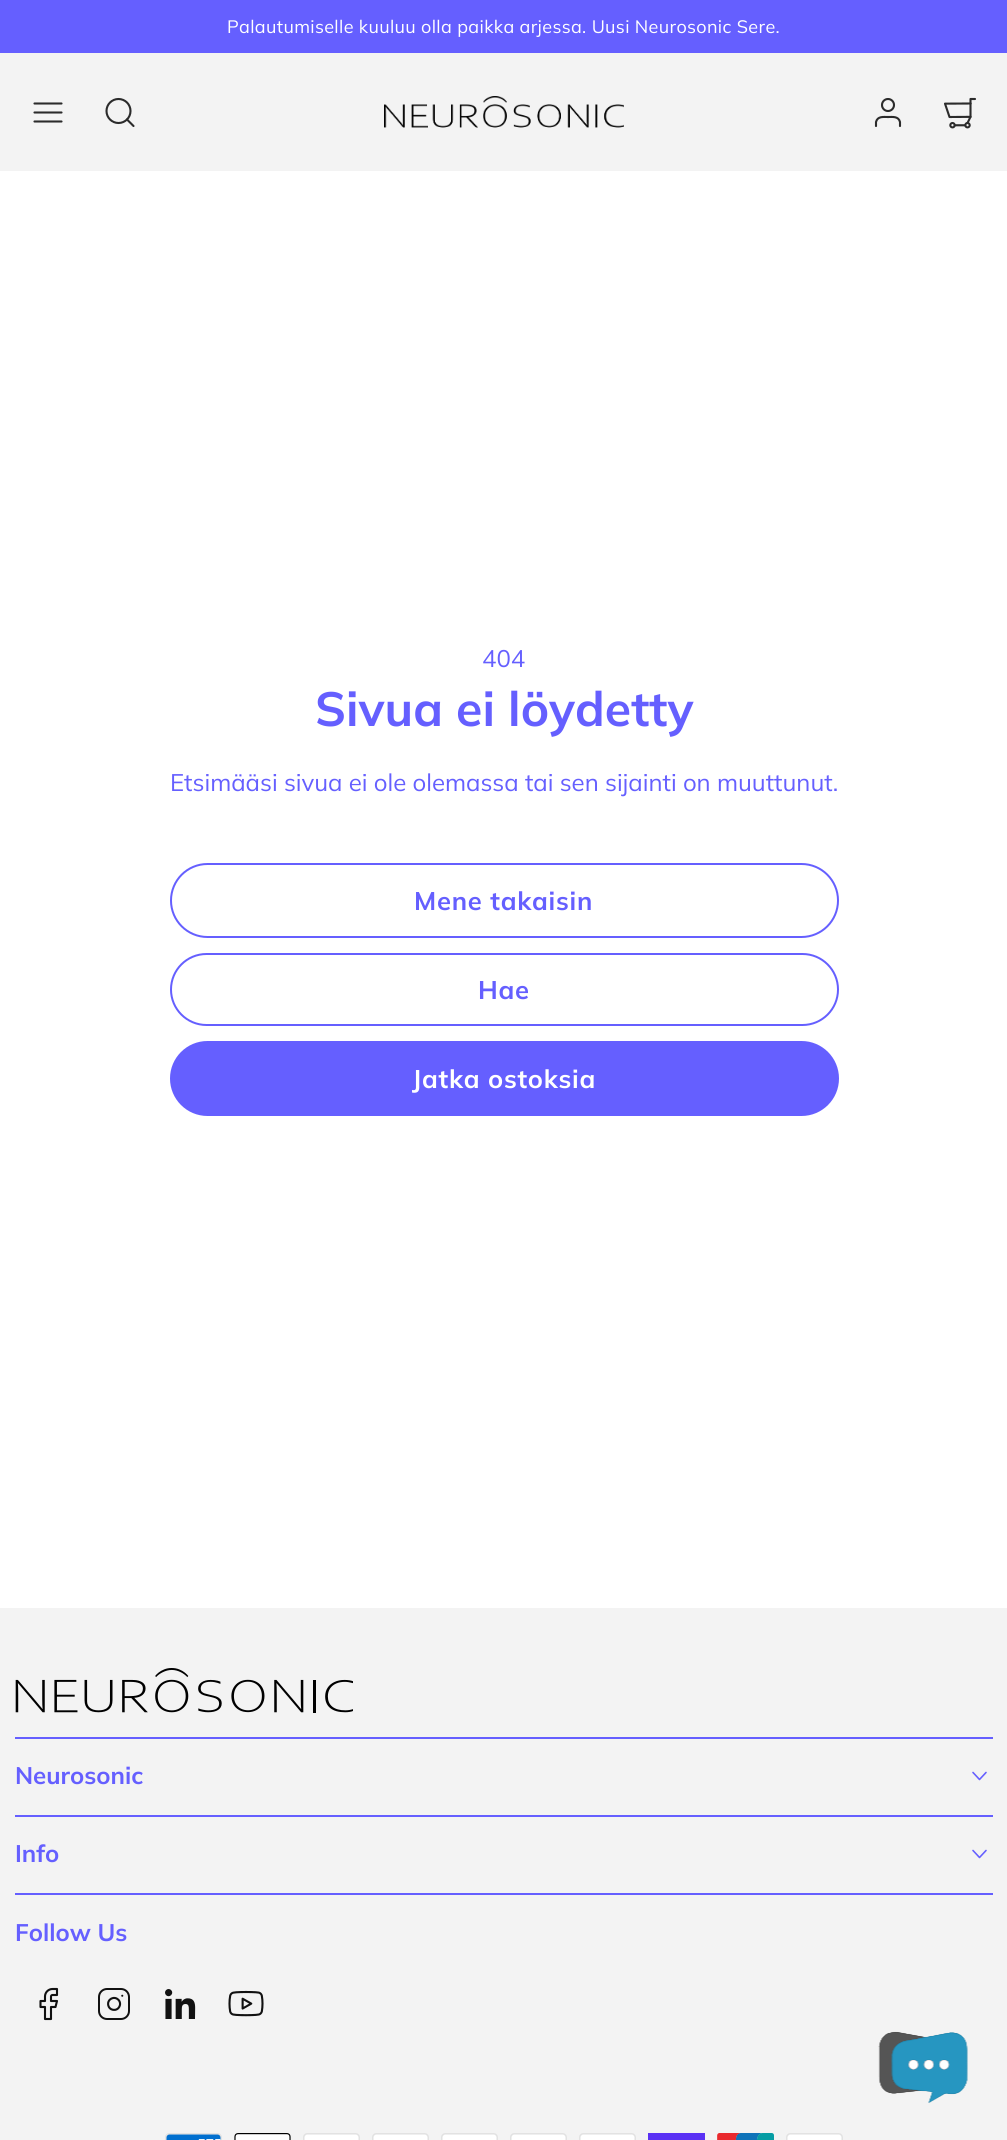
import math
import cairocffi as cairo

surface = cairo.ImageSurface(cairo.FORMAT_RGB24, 1007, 2140)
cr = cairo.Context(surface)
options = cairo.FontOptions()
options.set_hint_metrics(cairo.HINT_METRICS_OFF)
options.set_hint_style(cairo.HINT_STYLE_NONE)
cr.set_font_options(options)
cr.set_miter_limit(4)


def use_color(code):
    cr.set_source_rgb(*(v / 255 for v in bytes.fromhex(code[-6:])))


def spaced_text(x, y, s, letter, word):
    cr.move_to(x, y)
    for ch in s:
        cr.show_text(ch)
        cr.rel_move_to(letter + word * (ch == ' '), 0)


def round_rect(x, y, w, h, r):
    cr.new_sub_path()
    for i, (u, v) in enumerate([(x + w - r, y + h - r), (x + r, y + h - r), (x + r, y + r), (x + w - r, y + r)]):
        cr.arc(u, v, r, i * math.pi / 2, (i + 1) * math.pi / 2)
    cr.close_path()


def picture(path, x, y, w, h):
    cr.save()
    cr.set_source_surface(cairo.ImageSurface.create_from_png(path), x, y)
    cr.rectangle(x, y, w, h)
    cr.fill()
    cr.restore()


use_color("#ffffff")
cr.paint()
use_color("#655fff")
cr.rectangle(0, 0, 1007, 53)
cr.fill()
cr.select_font_face("Muli")
cr.set_font_size(18)
use_color("#ffffff")
spaced_text(227, 33, "Palautumiselle kuuluu olla paikka arjessa. Uusi Neurosonic Sere.", 0.35, 0)
use_color("#f3f3f3")
cr.rectangle(0, 53, 1007, 118)
cr.fill()
cr.new_path()
cr.move_to(34.5, 112.5)
cr.line_to(61.5, 112.5)
cr.move_to(34.5, 103.5)
cr.line_to(61.5, 103.5)
cr.move_to(34.5, 121.5)
cr.line_to(61.5, 121.5)
use_color("#2b2b2b")
cr.set_line_width(2.1)
cr.set_line_cap(cairo.LINE_CAP_ROUND)
cr.set_line_join(cairo.LINE_JOIN_ROUND)
cr.stroke()
cr.arc(118.5, 111, 12, 0, 2 * math.pi)
cr.set_line_cap(cairo.LINE_CAP_BUTT)
cr.set_line_join(cairo.LINE_JOIN_MITER)
cr.stroke()
cr.new_path()
cr.move_to(133.5, 126)
cr.line_to(127, 119.5)
cr.set_line_cap(cairo.LINE_CAP_ROUND)
cr.set_line_join(cairo.LINE_JOIN_ROUND)
cr.stroke()
picture("img1.png", 384, 96, 240, 32)
cr.new_path()
cr.move_to(900, 126)
cr.line_to(900, 122)
cr.curve_to(898.5, 116, 892.5, 117, 888, 117)
cr.curve_to(883.5, 117, 877.5, 116, 876, 122)
cr.line_to(876, 126)
cr.stroke()
cr.arc(888, 105, 6, 0, 2 * math.pi)
cr.set_line_cap(cairo.LINE_CAP_BUTT)
cr.set_line_join(cairo.LINE_JOIN_MITER)
cr.stroke()
picture("img2.png", 944, 97, 32, 32)
cr.set_font_size(24)
use_color("#655fff")
cr.move_to(482, 667)
cr.show_text("404")
cr.select_font_face("Muli", cairo.FONT_SLANT_NORMAL, cairo.FONT_WEIGHT_BOLD)
cr.set_font_size(48)
cr.move_to(315, 726)
cr.show_text("Sivua ei löydetty")
cr.select_font_face("Muli")
cr.set_font_size(24)
cr.move_to(170, 791)
cr.show_text("Etsimääsi sivua ei ole olemassa tai sen sijainti on muuttunut.")
round_rect(171, 864, 667, 73, 36.5)
cr.set_line_width(2)
cr.stroke()
cr.select_font_face("Muli", cairo.FONT_SLANT_NORMAL, cairo.FONT_WEIGHT_BOLD)
cr.set_font_size(25.5)
spaced_text(414, 910, "Mene takaisin", 0.75, 0)
round_rect(171, 954, 667, 71, 35.5)
cr.stroke()
spaced_text(478, 999, "Hae", 0.75, 0)
round_rect(170, 1041, 669, 75, 37.5)
cr.fill()
use_color("#ffffff")
spaced_text(412, 1088, "Jatka ostoksia", 0.75, 0)
use_color("#f3f3f3")
cr.rectangle(0, 1608, 1007, 532)
cr.fill()
picture("img3.png", 15, 1668, 338, 45)
use_color("#655fff")
cr.rectangle(15, 1737, 978, 2)
cr.fill()
cr.set_font_size(24)
cr.move_to(15, 1784)
cr.show_text("Neurosonic")
cr.new_path()
cr.move_to(973, 1772.5)
cr.line_to(979.5, 1779.5)
cr.line_to(986, 1772.5)
cr.set_line_width(1.6)
cr.set_line_cap(cairo.LINE_CAP_ROUND)
cr.set_line_join(cairo.LINE_JOIN_ROUND)
cr.stroke()
cr.rectangle(15, 1815, 978, 2)
cr.fill()
cr.move_to(15, 1862)
cr.show_text("Info")
cr.new_path()
cr.move_to(973, 1850.5)
cr.line_to(979.5, 1857.5)
cr.line_to(986, 1850.5)
cr.stroke()
cr.rectangle(15, 1893, 978, 2)
cr.fill()
cr.move_to(15, 1941)
cr.show_text("Follow Us")
picture("img4.png", 39, 1987, 20, 34)
picture("img5.png", 98, 1988, 32, 32)
picture("img6.png", 165, 1989, 31, 30)
picture("img7.png", 228, 1990, 36, 27)
picture("img8.png", 165, 2133, 57, 7)
picture("img9.png", 234, 2133, 57, 7)
picture("img10.png", 303, 2133, 57, 7)
picture("img10.png", 372, 2133, 57, 7)
picture("img10.png", 441, 2133, 57, 7)
picture("img10.png", 510, 2133, 57, 7)
picture("img10.png", 579, 2133, 57, 7)
use_color("#5a31f4")
cr.rectangle(648, 2133, 57, 7)
cr.fill()
picture("img11.png", 717, 2133, 57, 7)
picture("img10.png", 786, 2133, 57, 7)
picture("img12.png", 878, 2031, 90, 72)
surface.write_to_png("result.png")
